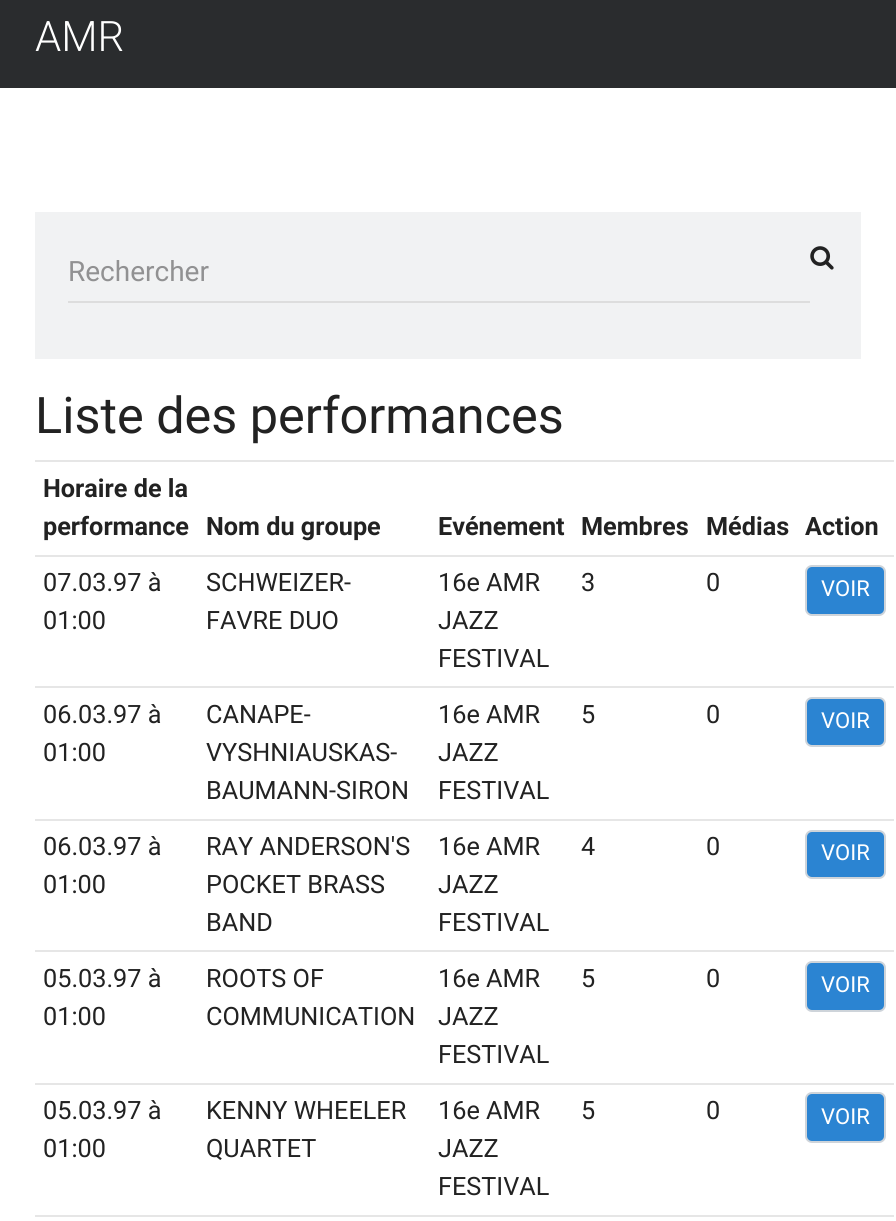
import math
import cairocffi as cairo

surface = cairo.ImageSurface(cairo.FORMAT_RGB24, 896, 1221)
cr = cairo.Context(surface)
options = cairo.FontOptions()
options.set_hint_metrics(cairo.HINT_METRICS_OFF)
options.set_hint_style(cairo.HINT_STYLE_NONE)
cr.set_font_options(options)
cr.set_miter_limit(4)


def use_color(code):
    cr.set_source_rgb(*(v / 255 for v in bytes.fromhex(code[-6:])))


def round_rect(x, y, w, h, r):
    cr.new_sub_path()
    for i, (u, v) in enumerate([(x + w - r, y + h - r), (x + r, y + h - r), (x + r, y + r), (x + w - r, y + r)]):
        cr.arc(u, v, r, i * math.pi / 2, (i + 1) * math.pi / 2)
    cr.close_path()


def picture(path, x, y, w, h):
    cr.save()
    cr.set_source_surface(cairo.ImageSurface.create_from_png(path), x, y)
    cr.rectangle(x, y, w, h)
    cr.fill()
    cr.restore()


use_color("#ffffff")
cr.paint()
use_color("#2a2c2e")
cr.rectangle(0, 0, 896, 88)
cr.fill()
cr.select_font_face("Roboto Light")
cr.set_font_size(42)
use_color("#ffffff")
cr.move_to(35, 51)
cr.show_text("AMR")
use_color("#f1f2f3")
cr.rectangle(35, 212, 826, 147)
cr.fill()
use_color("#dddddd")
cr.rectangle(68, 301, 742, 2)
cr.fill()
cr.select_font_face("Roboto")
cr.set_font_size(28)
use_color("#919192")
cr.move_to(68, 281)
cr.show_text("Rechercher")
picture("img1.png", 810, 246, 24, 24)
cr.set_font_size(50.4)
use_color("#222222")
cr.move_to(35, 433)
cr.show_text("Liste des performances")
cr.select_font_face("Roboto", cairo.FONT_SLANT_NORMAL, cairo.FONT_WEIGHT_BOLD)
cr.set_font_size(25.25)
cr.move_to(43, 497)
cr.show_text("Horaire de la")
cr.move_to(43, 535)
cr.show_text("performance")
cr.move_to(206, 535)
cr.show_text("Nom du groupe")
cr.move_to(438, 535)
cr.show_text("Evénement")
cr.move_to(581, 535)
cr.show_text("Membres")
cr.move_to(706, 535)
cr.show_text("Médias")
use_color("#e6e6e6")
cr.rectangle(35, 460, 859, 2)
cr.fill()
use_color("#222222")
cr.move_to(805, 535)
cr.show_text("Action")
cr.select_font_face("Roboto")
cr.move_to(43, 591)
cr.show_text("07.03.97 à")
cr.move_to(43, 629)
cr.show_text("01:00")
cr.move_to(206, 591)
cr.show_text("SCHWEIZER-")
cr.move_to(206, 629)
cr.show_text("FAVRE DUO")
cr.move_to(438, 591)
cr.show_text("16e AMR")
cr.move_to(438, 629)
cr.show_text("JAZZ")
cr.move_to(438, 667)
cr.show_text("FESTIVAL")
cr.move_to(581, 591)
cr.show_text("3")
cr.move_to(706, 591)
cr.show_text("0")
use_color("#e6e6e6")
cr.rectangle(35, 555, 859, 2)
cr.fill()
use_color("#2b84d2")
round_rect(806, 566, 79, 49, 6)
cr.fill_preserve()
use_color("#ced4da")
cr.stroke()
cr.set_font_size(22)
use_color("#ffffff")
cr.move_to(821, 596)
cr.show_text("VOIR")
cr.set_font_size(25.25)
use_color("#222222")
cr.move_to(43, 723)
cr.show_text("06.03.97 à")
cr.move_to(43, 761)
cr.show_text("01:00")
cr.move_to(206, 723)
cr.show_text("CANAPE-")
cr.move_to(206, 761)
cr.show_text("VYSHNIAUSKAS-")
cr.move_to(206, 799)
cr.show_text("BAUMANN-SIRON")
cr.move_to(438, 723)
cr.show_text("16e AMR")
cr.move_to(438, 761)
cr.show_text("JAZZ")
cr.move_to(438, 799)
cr.show_text("FESTIVAL")
cr.move_to(581, 723)
cr.show_text("5")
cr.move_to(706, 723)
cr.show_text("0")
use_color("#e6e6e6")
cr.rectangle(35, 686, 859, 2)
cr.fill()
use_color("#2b84d2")
round_rect(806, 698, 79, 48, 6)
cr.fill_preserve()
use_color("#ced4da")
cr.stroke()
cr.set_font_size(22)
use_color("#ffffff")
cr.move_to(821, 728)
cr.show_text("VOIR")
cr.set_font_size(25.25)
use_color("#222222")
cr.move_to(43, 855)
cr.show_text("06.03.97 à")
cr.move_to(43, 893)
cr.show_text("01:00")
cr.move_to(206, 855)
cr.show_text("RAY ANDERSON'S")
cr.move_to(206, 893)
cr.show_text("POCKET BRASS")
cr.move_to(206, 931)
cr.show_text("BAND")
cr.move_to(438, 855)
cr.show_text("16e AMR")
cr.move_to(438, 893)
cr.show_text("JAZZ")
cr.move_to(438, 931)
cr.show_text("FESTIVAL")
cr.move_to(581, 855)
cr.show_text("4")
cr.move_to(706, 855)
cr.show_text("0")
use_color("#e6e6e6")
cr.rectangle(35, 819, 859, 2)
cr.fill()
use_color("#2b84d2")
round_rect(806, 831, 79, 47, 6)
cr.fill_preserve()
use_color("#ced4da")
cr.stroke()
cr.set_font_size(22)
use_color("#ffffff")
cr.move_to(821, 860)
cr.show_text("VOIR")
cr.set_font_size(25.25)
use_color("#222222")
cr.move_to(43, 987)
cr.show_text("05.03.97 à")
cr.move_to(43, 1025)
cr.show_text("01:00")
cr.move_to(206, 987)
cr.show_text("ROOTS OF")
cr.move_to(206, 1025)
cr.show_text("COMMUNICATION")
cr.move_to(438, 987)
cr.show_text("16e AMR")
cr.move_to(438, 1025)
cr.show_text("JAZZ")
cr.move_to(438, 1063)
cr.show_text("FESTIVAL")
cr.move_to(581, 987)
cr.show_text("5")
cr.move_to(706, 987)
cr.show_text("0")
use_color("#e6e6e6")
cr.rectangle(35, 950, 859, 2)
cr.fill()
use_color("#2b84d2")
round_rect(806, 962, 79, 49, 6)
cr.fill_preserve()
use_color("#ced4da")
cr.stroke()
cr.set_font_size(22)
use_color("#ffffff")
cr.move_to(821, 992)
cr.show_text("VOIR")
cr.set_font_size(25.25)
use_color("#222222")
cr.move_to(43, 1119)
cr.show_text("05.03.97 à")
cr.move_to(43, 1157)
cr.show_text("01:00")
cr.move_to(206, 1119)
cr.show_text("KENNY WHEELER")
cr.move_to(206, 1157)
cr.show_text("QUARTET")
cr.move_to(438, 1119)
cr.show_text("16e AMR")
cr.move_to(438, 1157)
cr.show_text("JAZZ")
cr.move_to(438, 1195)
cr.show_text("FESTIVAL")
cr.move_to(581, 1119)
cr.show_text("5")
cr.move_to(706, 1119)
cr.show_text("0")
use_color("#e6e6e6")
cr.rectangle(35, 1083, 859, 2)
cr.fill()
use_color("#2b84d2")
round_rect(806, 1093, 79, 49, 6)
cr.fill_preserve()
use_color("#ced4da")
cr.stroke()
cr.set_font_size(22)
use_color("#ffffff")
cr.move_to(821, 1124)
cr.show_text("VOIR")
use_color("#e6e6e6")
cr.rectangle(35, 1215, 859, 2)
cr.fill()
surface.write_to_png("result.png")
